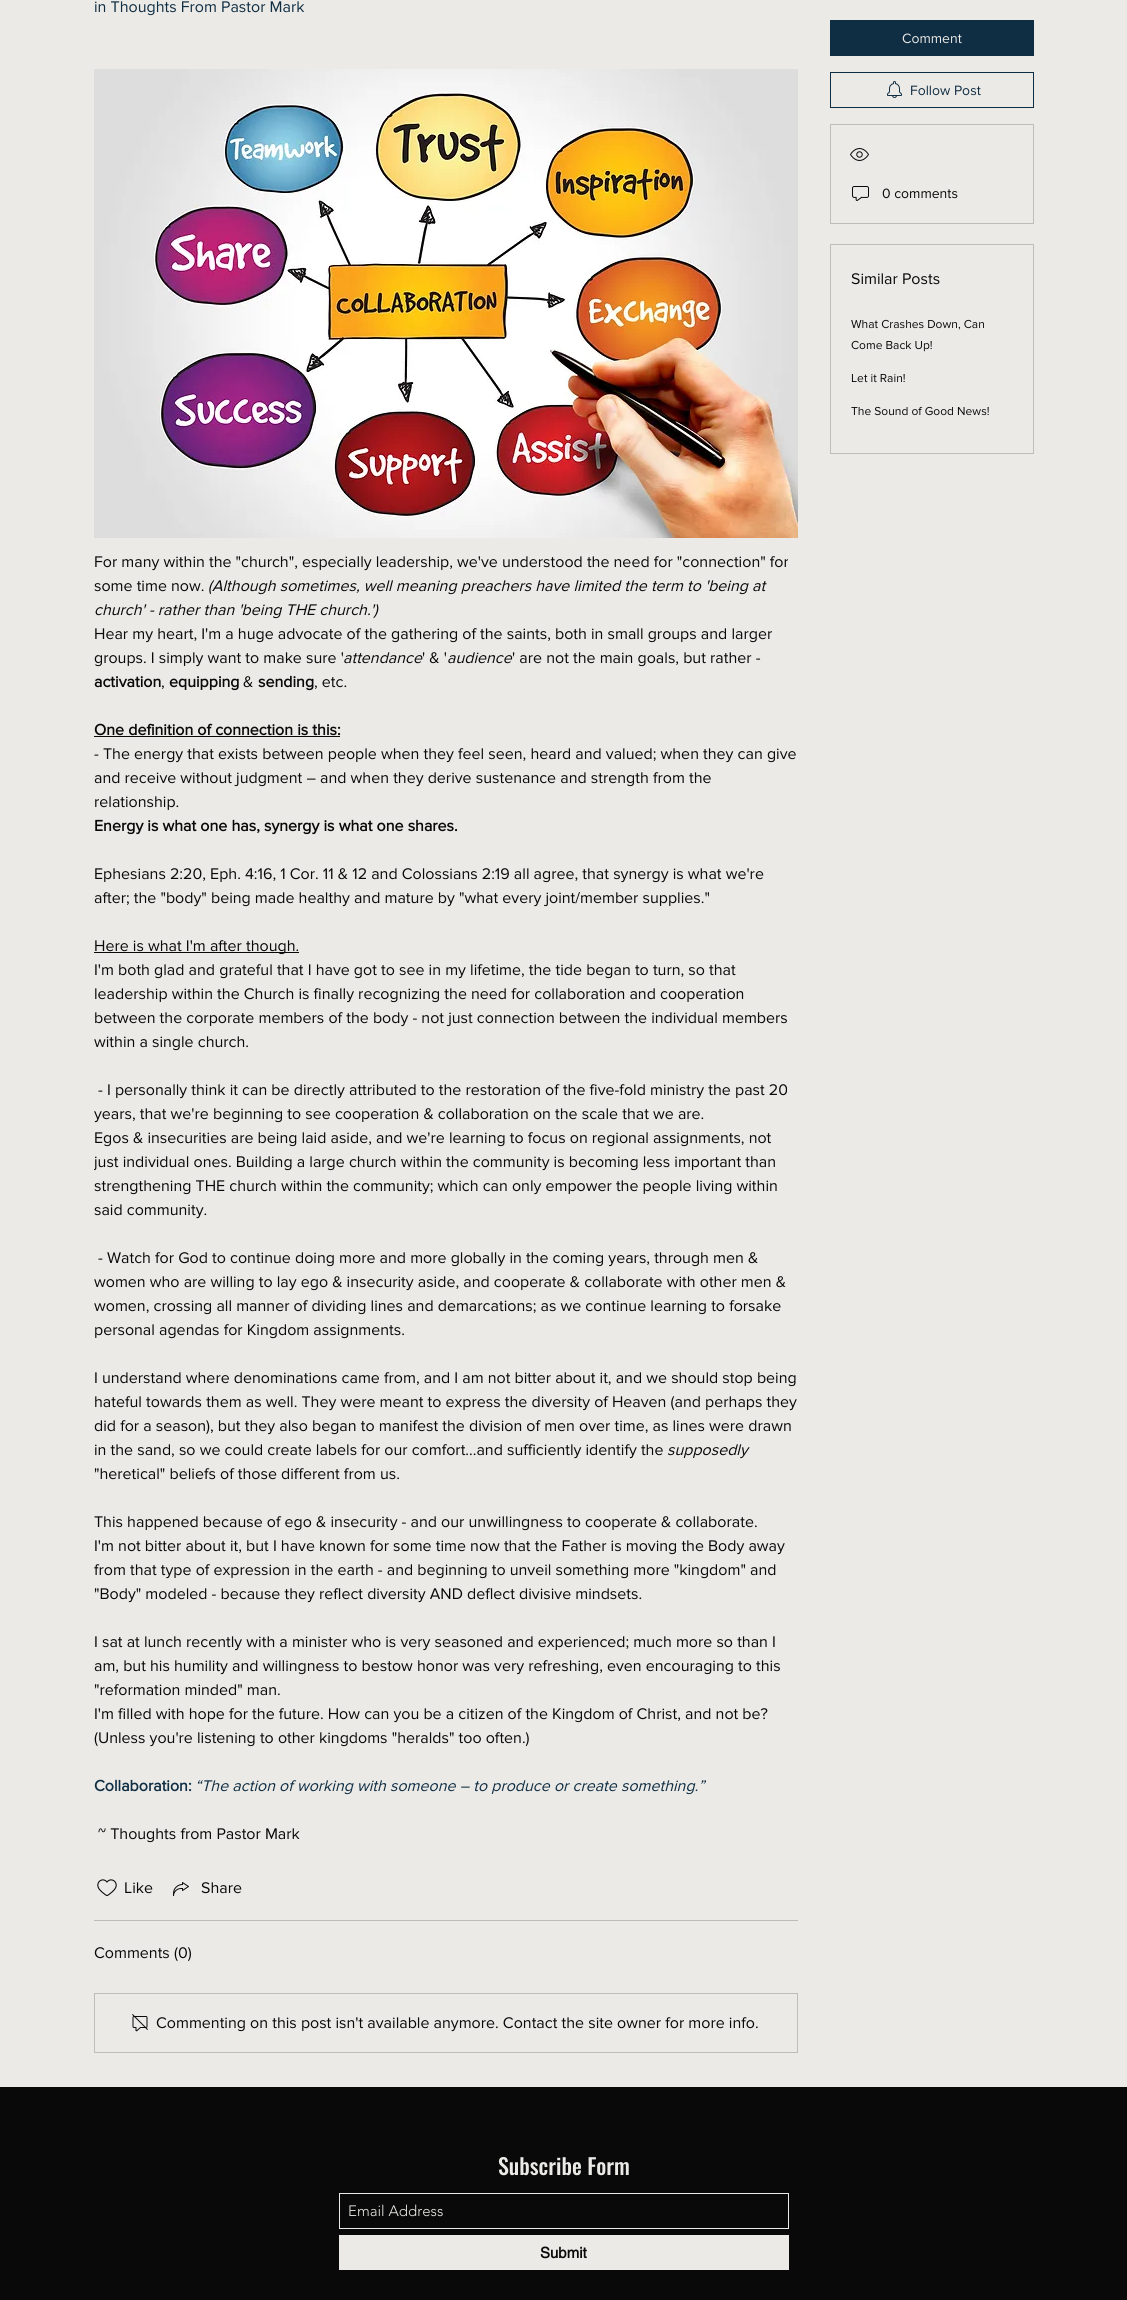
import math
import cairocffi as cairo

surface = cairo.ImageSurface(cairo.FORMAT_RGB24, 1127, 2300)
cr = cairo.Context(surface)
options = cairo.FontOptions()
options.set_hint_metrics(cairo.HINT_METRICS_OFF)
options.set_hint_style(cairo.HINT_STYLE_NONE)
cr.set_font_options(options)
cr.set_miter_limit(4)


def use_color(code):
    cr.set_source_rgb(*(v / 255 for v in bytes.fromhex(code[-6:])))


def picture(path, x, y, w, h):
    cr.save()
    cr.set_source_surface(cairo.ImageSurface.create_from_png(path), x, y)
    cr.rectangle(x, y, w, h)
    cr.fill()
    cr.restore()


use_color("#ebeae6")
cr.paint()
cr.select_font_face("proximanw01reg")
cr.set_font_size(16)
use_color("#0f2d43")
cr.move_to(94, 12)
cr.show_text("in Thoughts From Pastor Mark")
picture("img1.png", 94, 69, 704, 469)
use_color("#090909")
cr.move_to(94, 567)
cr.show_text("For many within the \"church\", especially leadership, we've understood the need for \"connection\" for")
cr.move_to(94, 591)
cr.show_text("some time now.")
cr.select_font_face("proximanw01reg", cairo.FONT_SLANT_ITALIC)
cr.move_to(208, 591)
cr.show_text("(Although sometimes, well meaning preachers have limited the term to 'being at")
cr.move_to(94, 615)
cr.show_text("church' - rather than 'being THE church.')")
cr.select_font_face("proximanw01reg")
cr.move_to(94, 639)
cr.show_text("Hear my heart, I'm a huge advocate of the gathering of the saints, both in small groups and larger")
cr.move_to(94, 663)
cr.show_text("groups. I simply want to make sure '")
cr.select_font_face("proximanw01reg", cairo.FONT_SLANT_ITALIC)
cr.move_to(343, 663)
cr.show_text("attendance")
cr.select_font_face("proximanw01reg")
cr.move_to(422, 663)
cr.show_text("' & '")
cr.select_font_face("proximanw01reg", cairo.FONT_SLANT_ITALIC)
cr.move_to(447, 663)
cr.show_text("audience")
cr.select_font_face("proximanw01reg")
cr.move_to(512, 663)
cr.show_text("' are not the main goals, but rather -")
cr.select_font_face("proximanw01reg", cairo.FONT_SLANT_NORMAL, cairo.FONT_WEIGHT_BOLD)
cr.move_to(94, 687)
cr.show_text("activation")
cr.select_font_face("proximanw01reg")
cr.move_to(161, 687)
cr.show_text(",")
cr.select_font_face("proximanw01reg", cairo.FONT_SLANT_NORMAL, cairo.FONT_WEIGHT_BOLD)
cr.move_to(169, 687)
cr.show_text("equipping")
cr.select_font_face("proximanw01reg")
cr.move_to(243, 687)
cr.show_text("&")
cr.select_font_face("proximanw01reg", cairo.FONT_SLANT_NORMAL, cairo.FONT_WEIGHT_BOLD)
cr.move_to(258, 687)
cr.show_text("sending")
cr.select_font_face("proximanw01reg")
cr.move_to(314, 687)
cr.show_text(", etc.")
cr.select_font_face("proximanw01reg", cairo.FONT_SLANT_NORMAL, cairo.FONT_WEIGHT_BOLD)
cr.move_to(94, 735)
cr.show_text("One definition of connection is this:")
cr.rectangle(94, 736, 246, 1)
cr.fill()
cr.select_font_face("proximanw01reg")
cr.move_to(94, 759)
cr.show_text("- The energy that exists between people when they feel seen, heard and valued; when they can give")
cr.move_to(94, 783)
cr.show_text("and receive without judgment – and when they derive sustenance and strength from the")
cr.move_to(94, 807)
cr.show_text("relationship.")
cr.select_font_face("proximanw01reg", cairo.FONT_SLANT_NORMAL, cairo.FONT_WEIGHT_BOLD)
cr.move_to(94, 831)
cr.show_text("Energy is what one has, synergy is what one shares.")
cr.select_font_face("proximanw01reg")
cr.move_to(94, 879)
cr.show_text("Ephesians 2:20, Eph. 4:16, 1 Cor. 11 & 12 and Colossians 2:19 all agree, that synergy is what we're")
cr.move_to(94, 903)
cr.show_text("after; the \"body\" being made healthy and mature by \"what every joint/member supplies.\"")
cr.rectangle(94, 952, 205, 1)
cr.fill()
cr.move_to(94, 951)
cr.show_text("Here is what I'm after though.")
cr.move_to(94, 975)
cr.show_text("I'm both glad and grateful that I have got to see in my lifetime, the tide began to turn, so that")
cr.move_to(94, 999)
cr.show_text("leadership within the Church is finally recognizing the need for collaboration and cooperation")
cr.move_to(94, 1023)
cr.show_text("between the corporate members of the body - not just connection between the individual members")
cr.move_to(94, 1047)
cr.show_text("within a single church.")
cr.move_to(98, 1095)
cr.show_text("- I personally think it can be directly attributed to the restoration of the five-fold ministry the past 20")
cr.move_to(94, 1119)
cr.show_text("years, that we're beginning to see cooperation & collaboration on the scale that we are.")
cr.move_to(94, 1143)
cr.show_text("Egos & insecurities are being laid aside, and we're learning to focus on regional assignments, not")
cr.save()
cr.rectangle(94, 33, 704, 1813)
cr.clip()
cr.move_to(94, 1167)
cr.show_text("just individual ones. Building a large church within the community is becoming less important than")
cr.restore()
cr.move_to(94, 1191)
cr.show_text("strengthening THE church within the community; which can only empower the people living within")
cr.move_to(94, 1215)
cr.show_text("said community.")
cr.move_to(98, 1263)
cr.show_text("- Watch for God to continue doing more and more globally in the coming years, through men &")
cr.move_to(94, 1287)
cr.show_text("women who are willing to lay ego & insecurity aside, and cooperate & collaborate with other men &")
cr.move_to(94, 1311)
cr.show_text("women, crossing all manner of dividing lines and demarcations; as we continue learning to forsake")
cr.move_to(94, 1335)
cr.show_text("personal agendas for Kingdom assignments.")
cr.move_to(94, 1383)
cr.show_text("I understand where denominations came from, and I am not bitter about it, and we should stop being")
cr.move_to(94, 1407)
cr.show_text("hateful towards them as well. They were meant to express the diversity of Heaven (and perhaps they")
cr.move_to(94, 1431)
cr.show_text("did for a season), but they also began to manifest the division of men over time, as lines were drawn")
cr.move_to(94, 1455)
cr.show_text("in the sand, so we could create labels for our comfort...and sufficiently identify the")
cr.select_font_face("proximanw01reg", cairo.FONT_SLANT_ITALIC)
cr.move_to(667, 1455)
cr.show_text("supposedly")
cr.select_font_face("proximanw01reg")
cr.move_to(94, 1479)
cr.show_text("\"heretical\" beliefs of those different from us.")
cr.move_to(94, 1527)
cr.show_text("This happened because of ego & insecurity - and our unwillingness to cooperate & collaborate.")
cr.move_to(94, 1551)
cr.show_text("I'm not bitter about it, but I have known for some time now that the Father is moving the Body away")
cr.move_to(94, 1575)
cr.show_text("from that type of expression in the earth - and beginning to unveil something more \"kingdom\" and")
cr.move_to(94, 1599)
cr.show_text("\"Body\" modeled - because they reflect diversity AND deflect divisive mindsets.")
cr.move_to(94, 1647)
cr.show_text("I sat at lunch recently with a minister who is very seasoned and experienced; much more so than I")
cr.move_to(94, 1671)
cr.show_text("am, but his humility and willingness to bestow honor was very refreshing, even encouraging to this")
cr.move_to(94, 1695)
cr.show_text("\"reformation minded\" man.")
cr.move_to(94, 1719)
cr.show_text("I'm filled with hope for the future. How can you be a citizen of the Kingdom of Christ, and not be?")
cr.move_to(94, 1743)
cr.show_text("(Unless you're listening to other kingdoms \"heralds\" too often.)")
cr.select_font_face("proximanw01reg", cairo.FONT_SLANT_NORMAL, cairo.FONT_WEIGHT_BOLD)
use_color("#0f2d43")
cr.move_to(94, 1791)
cr.show_text("Collaboration:")
cr.select_font_face("proximanw01reg", cairo.FONT_SLANT_ITALIC)
cr.move_to(195, 1791)
cr.show_text("“The action of working with someone – to produce or create something.”")
cr.select_font_face("proximanw01reg")
use_color("#090909")
cr.move_to(98, 1839)
cr.show_text("~ Thoughts from Pastor Mark")
picture("img2.png", 97, 1879, 20, 18)
cr.move_to(124, 1893)
cr.show_text("Like")
picture("img3.png", 173, 1882, 16, 14)
cr.move_to(201, 1893)
cr.show_text("Share")
use_color("#bebdba")
cr.rectangle(94, 1920, 704, 1)
cr.fill()
use_color("#090909")
cr.move_to(94, 1958)
cr.show_text("Comments (0)")
cr.rectangle(94.5, 1993.5, 703, 59)
use_color("#bebdba")
cr.set_line_width(1)
cr.stroke()
picture("img4.png", 132, 2014, 16, 18)
use_color("#090909")
cr.move_to(156, 2028)
cr.show_text("Commenting on this post isn't available anymore. Contact the site owner for more info.")
use_color("#0f2d43")
cr.rectangle(830, 20, 204, 36)
cr.fill()
cr.set_font_size(14)
use_color("#ebeae6")
cr.move_to(902, 43)
cr.show_text("Comment")
cr.rectangle(830.5, 72.5, 203, 35)
use_color("#0f2d43")
cr.stroke()
picture("img5.png", 887, 81, 15, 17)
cr.move_to(910, 95)
cr.show_text("Follow Post")
cr.rectangle(830.5, 124.5, 203, 99)
use_color("#bebdba")
cr.stroke()
picture("img6.png", 850, 148, 19, 13)
picture("img7.png", 852, 186, 17, 15)
use_color("#090909")
cr.move_to(882, 198)
cr.show_text("0 comments")
cr.rectangle(830.5, 244.5, 203, 209)
use_color("#bebdba")
cr.stroke()
cr.set_font_size(16)
use_color("#090909")
cr.move_to(851, 284)
cr.show_text("Similar Posts")
cr.set_font_size(12)
cr.move_to(851, 328)
cr.show_text("What Crashes Down, Can")
cr.move_to(851, 349)
cr.show_text("Come Back Up!")
cr.move_to(851, 382)
cr.show_text("Let it Rain!")
cr.move_to(851, 415)
cr.show_text("The Sound of Good News!")
cr.rectangle(0, 2087, 1127, 213)
cr.fill()
cr.select_font_face("Oswald Medium")
cr.set_font_size(22)
use_color("#ebeae6")
cr.move_to(498, 2175)
cr.show_text("Subscribe Form")
cr.rectangle(339.5, 2193.5, 449, 35)
cr.stroke()
cr.select_font_face("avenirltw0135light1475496 Light")
cr.set_font_size(15)
cr.move_to(348, 2216)
cr.show_text("Email Address")
cr.rectangle(339, 2235, 450, 35)
cr.fill()
cr.select_font_face("helvetica", cairo.FONT_SLANT_NORMAL, cairo.FONT_WEIGHT_BOLD)
use_color("#090909")
cr.move_to(540, 2258)
cr.show_text("Submit")
surface.write_to_png("result.png")
